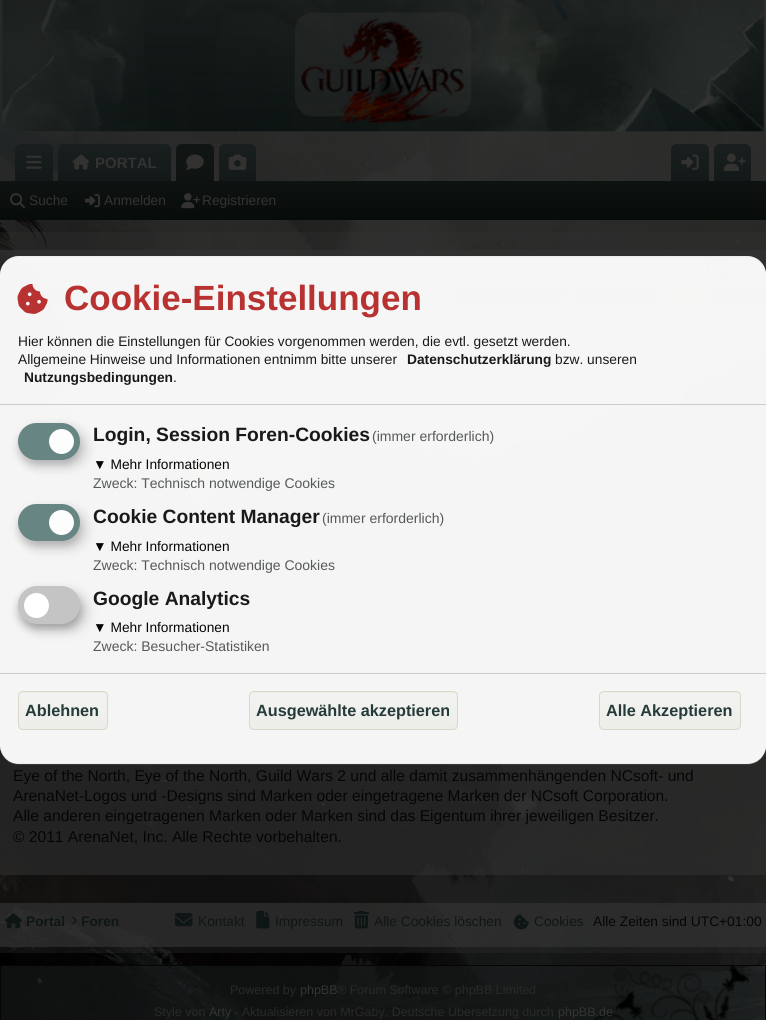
import math
import cairocffi as cairo

surface = cairo.ImageSurface(cairo.FORMAT_RGB24, 766, 1020)
cr = cairo.Context(surface)
options = cairo.FontOptions()
options.set_hint_metrics(cairo.HINT_METRICS_OFF)
options.set_hint_style(cairo.HINT_STYLE_NONE)
cr.set_font_options(options)
cr.set_miter_limit(4)


def use_color(code):
    cr.set_source_rgb(*(v / 255 for v in bytes.fromhex(code[-6:])))


def round_rect(x, y, w, h, r):
    cr.new_sub_path()
    for i, (u, v) in enumerate([(x + w - r, y + h - r), (x + r, y + h - r), (x + r, y + r), (x + w - r, y + r)]):
        cr.arc(u, v, r, i * math.pi / 2, (i + 1) * math.pi / 2)
    cr.close_path()


def shadow(x, y, w, h, r, blur, alpha):
    cr.push_group_with_content(cairo.CONTENT_ALPHA)
    cr.set_operator(cairo.OPERATOR_SOURCE)
    for i in range(15, -16, -2):
        e = blur * i / 6
        if min(w, h) + 2 * e > 0:
            cr.set_source_rgba(0, 0, 0, alpha * math.erfc((i - 1) / 8.5) / 2)
            round_rect(x - e, y - e, w + 2 * e, h + 2 * e, max(0, min(r + e + blur * .6, min(w, h) / 2 + e)))
            cr.fill()
    cr.mask(cr.pop_group())


def picture(path, x, y, w, h):
    cr.save()
    cr.set_source_surface(cairo.ImageSurface.create_from_png(path), x, y)
    cr.rectangle(x, y, w, h)
    cr.fill()
    cr.restore()


use_color("#ffffff")
cr.paint()
picture("img1.png", 0, 0, 766, 1020)
cr.set_source_rgba(0.2, 0.2, 0.2, 0.3)
cr.rectangle(0, 0, 766, 181)
cr.fill()
picture("img2.png", 2, 0, 762, 132)
picture("img3.png", 295, 12, 177, 111)
use_color("#131919")
cr.new_path()
cr.move_to(21, 144)
cr.line_to(47, 144)
cr.curve_to(50.5, 144, 53, 146.5, 53, 150)
cr.line_to(53, 181)
cr.line_to(15, 181)
cr.line_to(15, 150)
cr.curve_to(15, 146.5, 17.5, 144, 21, 144)
cr.close_path()
cr.fill()
gradient = cairo.LinearGradient(34, 144, 34, 181)
gradient.add_color_stop_rgba(0, 0.2, 0.2, 0.2, 0.2)
gradient.add_color_stop_rgba(1, 0.2, 0.2, 0.2, 0)
cr.set_source(gradient)
cr.new_path()
cr.move_to(21, 144)
cr.line_to(47, 144)
cr.curve_to(50.5, 144, 53, 146.5, 53, 150)
cr.line_to(53, 181)
cr.line_to(15, 181)
cr.line_to(15, 150)
cr.curve_to(15, 146.5, 17.5, 144, 21, 144)
cr.close_path()
cr.fill()
picture("img4.png", 26, 155, 16, 14)
use_color("#131919")
cr.new_path()
cr.move_to(64, 144)
cr.line_to(165, 144)
cr.curve_to(168.5, 144, 171, 146.5, 171, 150)
cr.line_to(171, 181)
cr.line_to(58, 181)
cr.line_to(58, 150)
cr.curve_to(58, 146.5, 60.5, 144, 64, 144)
cr.close_path()
cr.fill()
gradient = cairo.LinearGradient(114, 144, 114, 181)
gradient.add_color_stop_rgba(0, 0.2, 0.2, 0.2, 0.2)
gradient.add_color_stop_rgba(1, 0.2, 0.2, 0.2, 0)
cr.set_source(gradient)
cr.new_path()
cr.move_to(64, 144)
cr.line_to(165, 144)
cr.curve_to(168.5, 144, 171, 146.5, 171, 150)
cr.line_to(171, 181)
cr.line_to(58, 181)
cr.line_to(58, 150)
cr.curve_to(58, 146.5, 60.5, 144, 64, 144)
cr.close_path()
cr.fill()
picture("img5.png", 72, 154, 18, 16)
cr.select_font_face("Liberation Sans", cairo.FONT_SLANT_NORMAL, cairo.FONT_WEIGHT_BOLD)
cr.set_font_size(15)
use_color("#333333")
cr.move_to(95, 168)
cr.show_text("PORTAL")
use_color("#070c0b")
cr.new_path()
cr.move_to(182, 144)
cr.line_to(208, 144)
cr.curve_to(211.5, 144, 214, 146.5, 214, 150)
cr.line_to(214, 181)
cr.line_to(176, 181)
cr.line_to(176, 150)
cr.curve_to(176, 146.5, 178.5, 144, 182, 144)
cr.close_path()
cr.fill()
gradient = cairo.LinearGradient(195, 144, 195, 181)
gradient.add_color_stop_rgba(0, 0.2, 0.2, 0.2, 0.25)
gradient.add_color_stop_rgba(1, 0.2, 0.2, 0.2, 0.15)
cr.set_source(gradient)
cr.new_path()
cr.move_to(182, 144)
cr.line_to(208, 144)
cr.curve_to(211.5, 144, 214, 146.5, 214, 150)
cr.line_to(214, 181)
cr.line_to(176, 181)
cr.line_to(176, 150)
cr.curve_to(176, 146.5, 178.5, 144, 182, 144)
cr.close_path()
cr.fill()
picture("img6.png", 186, 154, 18, 16)
gradient = cairo.LinearGradient(383, 181, 383, 220)
gradient.add_color_stop_rgba(0, 0.055, 0.071, 0.067, 1)
gradient.add_color_stop_rgba(1, 0.027, 0.047, 0.043, 1)
cr.set_source(gradient)
cr.rectangle(0, 181, 766, 39)
cr.fill()
use_color("#070c0b")
cr.new_path()
cr.move_to(178.5, 180)
cr.line_to(211.5, 180)
cr.curve_to(213, 180, 214, 181, 214, 182.5)
cr.line_to(214, 183)
cr.line_to(176, 183)
cr.line_to(176, 182.5)
cr.curve_to(176, 181, 177, 180, 178.5, 180)
cr.close_path()
cr.fill()
cr.set_source_rgba(0.2, 0.2, 0.2, 0.15)
cr.new_path()
cr.move_to(178.5, 180)
cr.line_to(211.5, 180)
cr.curve_to(213, 180, 214, 181, 214, 182.5)
cr.line_to(214, 183)
cr.line_to(176, 183)
cr.line_to(176, 182.5)
cr.curve_to(176, 181, 177, 180, 178.5, 180)
cr.close_path()
cr.fill()
use_color("#131919")
cr.new_path()
cr.move_to(225, 144)
cr.line_to(250, 144)
cr.curve_to(253.5, 144, 256, 146.5, 256, 150)
cr.line_to(256, 181)
cr.line_to(219, 181)
cr.line_to(219, 150)
cr.curve_to(219, 146.5, 221.5, 144, 225, 144)
cr.close_path()
cr.fill()
gradient = cairo.LinearGradient(238, 144, 238, 181)
gradient.add_color_stop_rgba(0, 0.2, 0.2, 0.2, 0.2)
gradient.add_color_stop_rgba(1, 0.2, 0.2, 0.2, 0)
cr.set_source(gradient)
cr.new_path()
cr.move_to(225, 144)
cr.line_to(250, 144)
cr.curve_to(253.5, 144, 256, 146.5, 256, 150)
cr.line_to(256, 181)
cr.line_to(219, 181)
cr.line_to(219, 150)
cr.curve_to(219, 146.5, 221.5, 144, 225, 144)
cr.close_path()
cr.fill()
picture("img7.png", 228, 154, 19, 16)
use_color("#131919")
cr.new_path()
cr.move_to(677, 144)
cr.line_to(703, 144)
cr.curve_to(706.5, 144, 709, 146.5, 709, 150)
cr.line_to(709, 181)
cr.line_to(671, 181)
cr.line_to(671, 150)
cr.curve_to(671, 146.5, 673.5, 144, 677, 144)
cr.close_path()
cr.fill()
gradient = cairo.LinearGradient(690, 144, 690, 181)
gradient.add_color_stop_rgba(0, 0.2, 0.2, 0.2, 0.2)
gradient.add_color_stop_rgba(1, 0.2, 0.2, 0.2, 0)
cr.set_source(gradient)
cr.new_path()
cr.move_to(677, 144)
cr.line_to(703, 144)
cr.curve_to(706.5, 144, 709, 146.5, 709, 150)
cr.line_to(709, 181)
cr.line_to(671, 181)
cr.line_to(671, 150)
cr.curve_to(671, 146.5, 673.5, 144, 677, 144)
cr.close_path()
cr.fill()
picture("img8.png", 681, 154, 18, 16)
use_color("#131919")
cr.new_path()
cr.move_to(720, 144)
cr.line_to(745, 144)
cr.curve_to(748.5, 144, 751, 146.5, 751, 150)
cr.line_to(751, 181)
cr.line_to(714, 181)
cr.line_to(714, 150)
cr.curve_to(714, 146.5, 716.5, 144, 720, 144)
cr.close_path()
cr.fill()
gradient = cairo.LinearGradient(733, 144, 733, 181)
gradient.add_color_stop_rgba(0, 0.2, 0.2, 0.2, 0.2)
gradient.add_color_stop_rgba(1, 0.2, 0.2, 0.2, 0)
cr.set_source(gradient)
cr.new_path()
cr.move_to(720, 144)
cr.line_to(745, 144)
cr.curve_to(748.5, 144, 751, 146.5, 751, 150)
cr.line_to(751, 181)
cr.line_to(714, 181)
cr.line_to(714, 150)
cr.curve_to(714, 146.5, 716.5, 144, 720, 144)
cr.close_path()
cr.fill()
picture("img9.png", 723, 153, 23, 18)
picture("img10.png", 10, 193, 15, 16)
cr.select_font_face("Liberation Sans")
cr.set_font_size(13.75)
use_color("#333333")
cr.move_to(29, 205)
cr.show_text("Suche")
picture("img11.png", 85, 194, 15, 14)
cr.move_to(104, 205)
cr.show_text("Anmelden")
picture("img12.png", 181, 193, 19, 16)
cr.move_to(202, 205)
cr.show_text("Registrieren")
cr.set_source_rgba(0.2, 0.2, 0.2, 0.3)
cr.rectangle(0, 232, 766, 721)
cr.fill()
cr.set_source_rgba(0.2, 0.2, 0.2, 0.7)
cr.rectangle(0, 250, 766, 40)
cr.fill()
picture("img17.png", 11, 272, 3, 3)
picture("img15.png", 5, 261, 17, 16)
picture("img16.png", 72, 266, 5, 9)
picture("img18.png", 706, 257, 23, 24)
picture("img19.png", 740, 259, 18, 19)
cr.set_source_rgba(0.2, 0.2, 0.2, 0.56)
cr.rectangle(0, 302, 766, 573)
cr.fill()
picture("img20.png", 142, 518, 17, 17)
cr.set_source_rgba(1, 1, 1, 0.85)
round_rect(0, 256, 766, 508, 19)
cr.fill()
picture("img13.png", 0, 256, 766, 509)
use_color("#cccccc")
cr.rectangle(0, 404, 766, 1)
cr.fill()
picture("img14.png", 17, 283, 31, 31)
cr.select_font_face("Liberation Sans", cairo.FONT_SLANT_NORMAL, cairo.FONT_WEIGHT_BOLD)
cr.set_font_size(35)
use_color("#b83231")
cr.move_to(64, 310)
cr.show_text("Cookie-Einstellungen")
cr.select_font_face("Liberation Sans")
cr.set_font_size(13.75)
use_color("#191919")
cr.move_to(18, 346)
cr.show_text("Hier können die Einstellungen für Cookies vorgenommen werden, die evtl. gesetzt werden.")
cr.move_to(18, 364)
cr.show_text("Allgemeine Hinweise und Informationen entnimm bitte unserer")
cr.select_font_face("Liberation Sans", cairo.FONT_SLANT_NORMAL, cairo.FONT_WEIGHT_BOLD)
cr.move_to(407, 364)
cr.show_text("Datenschutzerklärung")
cr.select_font_face("Liberation Sans")
cr.move_to(555, 364)
cr.show_text("bzw. unseren")
cr.select_font_face("Liberation Sans", cairo.FONT_SLANT_NORMAL, cairo.FONT_WEIGHT_BOLD)
cr.move_to(24, 382)
cr.show_text("Nutzungsbedingungen")
cr.select_font_face("Liberation Sans")
cr.move_to(173, 382)
cr.show_text(".")
use_color("#000000")
shadow(24, 429, 62, 37, 18.5, 6, 0.15)
use_color("#313131")
shadow(18, 428, 62, 37, 18.5, 4, 0.2)
use_color("#678683")
round_rect(18, 423, 62, 37, 18.5)
cr.fill()
use_color("#fdfdfd")
cr.arc(61.5, 441.5, 12.5, 0, 2 * math.pi)
cr.fill()
cr.select_font_face("Liberation Sans", cairo.FONT_SLANT_NORMAL, cairo.FONT_WEIGHT_BOLD)
cr.set_font_size(19.25)
use_color("#191919")
cr.move_to(93, 441)
cr.show_text("Login, Session Foren-Cookies")
cr.select_font_face("Liberation Sans")
cr.set_font_size(14)
use_color("#555958")
cr.move_to(372, 441)
cr.show_text("(immer erforderlich)")
cr.set_font_size(13.75)
use_color("#050505")
cr.move_to(93, 469)
cr.show_text("▼ Mehr Informationen")
cr.set_font_size(14)
use_color("#555958")
cr.move_to(93, 488)
cr.show_text("Zweck: Technisch notwendige Cookies")
use_color("#000000")
shadow(24, 510, 62, 38, 19, 6, 0.15)
use_color("#313131")
shadow(18, 509, 62, 37, 18.5, 4, 0.2)
use_color("#678683")
round_rect(18, 504, 62, 37, 18.5)
cr.fill()
use_color("#fdfdfd")
cr.arc(61.5, 522.5, 12.5, 0, 2 * math.pi)
cr.fill()
cr.select_font_face("Liberation Sans", cairo.FONT_SLANT_NORMAL, cairo.FONT_WEIGHT_BOLD)
cr.set_font_size(19.25)
use_color("#191919")
cr.move_to(93, 523)
cr.show_text("Cookie Content Manager")
cr.select_font_face("Liberation Sans")
cr.set_font_size(14)
use_color("#555958")
cr.move_to(322, 523)
cr.show_text("(immer erforderlich)")
cr.set_font_size(13.75)
use_color("#050505")
cr.move_to(93, 551)
cr.show_text("▼ Mehr Informationen")
cr.set_font_size(14)
use_color("#555958")
cr.move_to(93, 570)
cr.show_text("Zweck: Technisch notwendige Cookies")
use_color("#000000")
shadow(24, 593, 62, 37, 18.5, 6, 0.19)
shadow(18, 591, 62, 38, 19, 4, 0.2)
use_color("#c5c4c4")
round_rect(18, 586, 62, 38, 19)
cr.fill()
use_color("#ffffff")
cr.arc(36.5, 605.5, 12.5, 0, 2 * math.pi)
cr.fill()
cr.select_font_face("Liberation Sans", cairo.FONT_SLANT_NORMAL, cairo.FONT_WEIGHT_BOLD)
cr.set_font_size(19.25)
use_color("#191919")
cr.move_to(93, 605)
cr.show_text("Google Analytics")
cr.select_font_face("Liberation Sans")
cr.set_font_size(13.75)
use_color("#050505")
cr.move_to(93, 632)
cr.show_text("▼ Mehr Informationen")
cr.set_font_size(14)
use_color("#555958")
cr.move_to(93, 651)
cr.show_text("Zweck: Besucher-Statistiken")
use_color("#cccccc")
cr.rectangle(0, 673, 766, 1)
cr.fill()
use_color("#ededea")
round_rect(18, 691, 90, 39, 5)
cr.fill()
cr.save()
round_rect(18, 691, 90, 39, 5)
cr.clip()
gradient = cairo.LinearGradient(63, 693, 63, 729)
gradient.add_color_stop_rgba(0, 1, 1, 1, 0.3)
gradient.add_color_stop_rgba(1, 1, 1, 1, 0)
cr.set_source(gradient)
cr.rectangle(18, 693, 90, 33)
cr.fill()
cr.restore()
round_rect(18.5, 691.5, 89, 38, 4.5)
use_color("#ddd7c8")
cr.set_line_width(1)
cr.stroke()
cr.select_font_face("Liberation Sans", cairo.FONT_SLANT_NORMAL, cairo.FONT_WEIGHT_BOLD)
cr.set_font_size(16.25)
use_color("#253b39")
cr.move_to(25, 716)
cr.show_text("Ablehnen")
use_color("#ededea")
round_rect(249, 691, 209, 39, 5)
cr.fill()
cr.save()
round_rect(249, 691, 209, 39, 5)
cr.clip()
gradient = cairo.LinearGradient(353, 693, 353, 729)
gradient.add_color_stop_rgba(0, 1, 1, 1, 0.3)
gradient.add_color_stop_rgba(1, 1, 1, 1, 0)
cr.set_source(gradient)
cr.rectangle(249, 693, 209, 33)
cr.fill()
cr.restore()
round_rect(249.5, 691.5, 208, 38, 4.5)
use_color("#ddd7c8")
cr.stroke()
use_color("#253b39")
cr.move_to(256, 716)
cr.show_text("Ausgewählte akzeptieren")
use_color("#ededea")
round_rect(599, 691, 142, 39, 5)
cr.fill()
cr.save()
round_rect(599, 691, 142, 39, 5)
cr.clip()
gradient = cairo.LinearGradient(670, 693, 670, 729)
gradient.add_color_stop_rgba(0, 1, 1, 1, 0.3)
gradient.add_color_stop_rgba(1, 1, 1, 1, 0)
cr.set_source(gradient)
cr.rectangle(599, 693, 142, 33)
cr.fill()
cr.restore()
round_rect(599.5, 691.5, 141, 38, 4.5)
use_color("#ddd7c8")
cr.stroke()
use_color("#253b39")
cr.move_to(606, 716)
cr.show_text("Alle Akzeptieren")
cr.select_font_face("Liberation Sans")
cr.set_font_size(15.6)
use_color("#050505")
cr.move_to(13, 781)
cr.show_text("Eye of the North, Eye of the North, Guild Wars 2 und alle damit zusammenhängenden NCsoft- und")
cr.move_to(13, 801)
cr.show_text("ArenaNet-Logos und -Designs sind Marken oder eingetragene Marken der NCsoft Corporation.")
cr.move_to(13, 821)
cr.show_text("Alle anderen eingetragenen Marken oder Marken sind das Eigentum ihrer jeweiligen Besitzer.")
cr.save()
cr.rectangle(13, 371, 741, 498)
cr.clip()
cr.move_to(13, 842)
cr.show_text("© 2011 ArenaNet, Inc. Alle Rechte vorbehalten.")
cr.restore()
cr.set_source_rgba(0.2, 0.2, 0.2, 0.7)
cr.rectangle(0, 903, 766, 44)
cr.fill()
picture("img21.png", 5, 913, 17, 16)
cr.select_font_face("Liberation Sans", cairo.FONT_SLANT_NORMAL, cairo.FONT_WEIGHT_BOLD)
cr.set_font_size(13.75)
use_color("#0e1515")
cr.move_to(26, 926)
cr.show_text("Portal")
picture("img22.png", 72, 916, 5, 9)
cr.move_to(81, 926)
cr.show_text("Foren")
picture("img23.png", 175, 913, 18, 14)
cr.select_font_face("Liberation Sans")
cr.move_to(198, 926)
cr.show_text("Kontakt")
picture("img24.png", 256, 910, 14, 19)
cr.move_to(275, 926)
cr.show_text("Impressum")
picture("img25.png", 353, 910, 16, 19)
cr.move_to(374, 926)
cr.show_text("Alle Cookies löschen")
picture("img26.png", 513, 914, 16, 16)
cr.move_to(534, 926)
cr.show_text("Cookies")
use_color("#050505")
cr.move_to(593, 926)
cr.show_text("Alle Zeiten sind UTC+01:00")
cr.set_source_rgba(0.2, 0.2, 0.2, 0.3)
cr.rectangle(1, 966, 764, 54)
cr.fill()
picture("img27.png", 1, 966, 764, 54)
picture("img28.png", 592, 966, 161, 54)
cr.rectangle(0.5, 965.5, 765, 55)
use_color("#050505")
cr.stroke()
cr.set_font_size(12.5)
use_color("#282827")
cr.move_to(230, 994)
cr.show_text("Powered by")
use_color("#333333")
cr.move_to(300, 994)
cr.show_text("phpBB")
use_color("#282827")
cr.move_to(337, 994)
cr.show_text("® Forum Software © phpBB Limited")
cr.move_to(154, 1016)
cr.show_text("Style von")
use_color("#333333")
cr.move_to(209, 1016)
cr.show_text("Arty")
use_color("#282827")
cr.move_to(234, 1016)
cr.show_text("- Aktualisieren von MrGaby, Deutsche Übersetzung durch")
use_color("#333333")
cr.move_to(558, 1016)
cr.show_text("phpBB.de")
surface.write_to_png("result.png")
